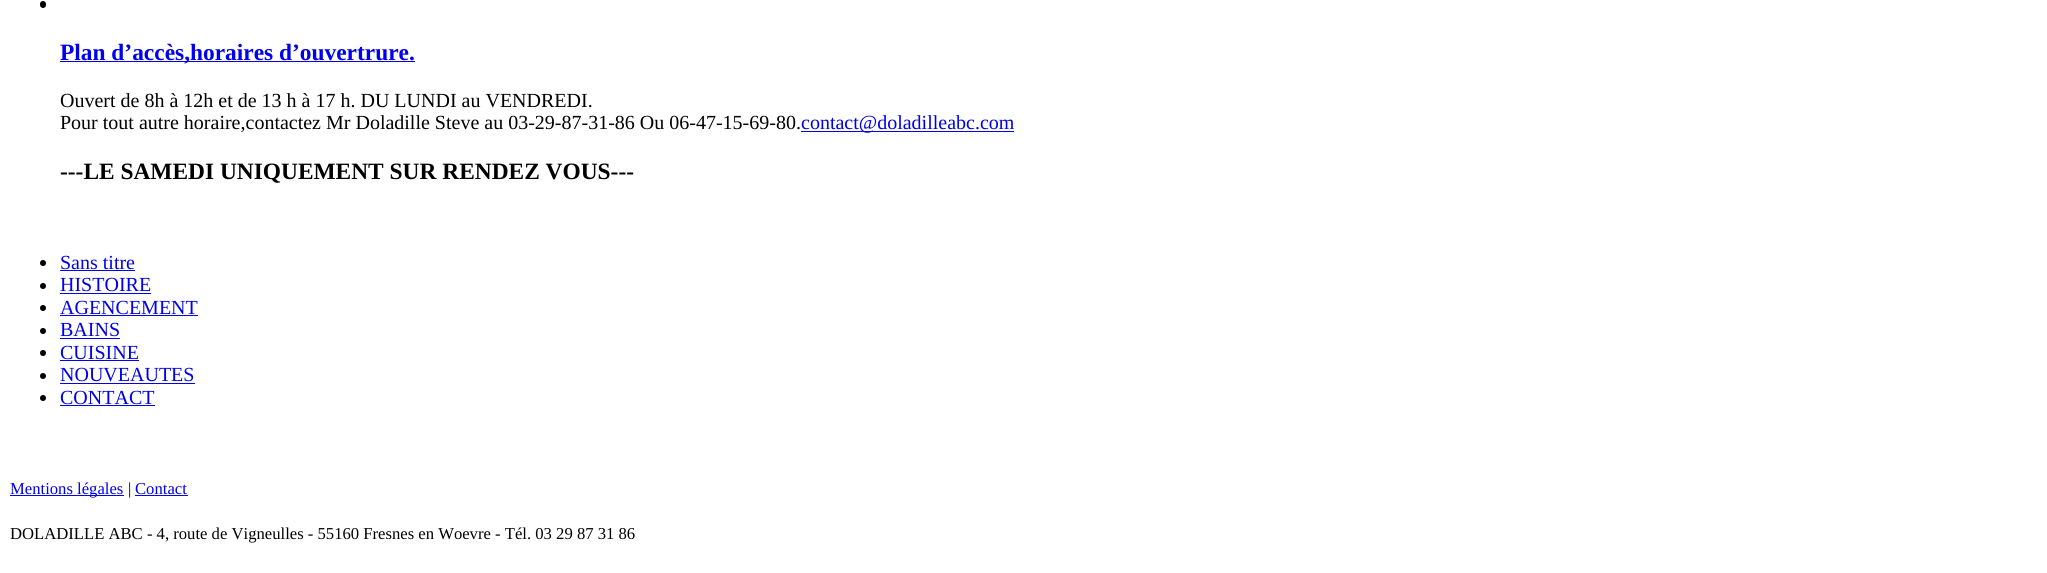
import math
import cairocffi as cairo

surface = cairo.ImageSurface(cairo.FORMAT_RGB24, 2047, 573)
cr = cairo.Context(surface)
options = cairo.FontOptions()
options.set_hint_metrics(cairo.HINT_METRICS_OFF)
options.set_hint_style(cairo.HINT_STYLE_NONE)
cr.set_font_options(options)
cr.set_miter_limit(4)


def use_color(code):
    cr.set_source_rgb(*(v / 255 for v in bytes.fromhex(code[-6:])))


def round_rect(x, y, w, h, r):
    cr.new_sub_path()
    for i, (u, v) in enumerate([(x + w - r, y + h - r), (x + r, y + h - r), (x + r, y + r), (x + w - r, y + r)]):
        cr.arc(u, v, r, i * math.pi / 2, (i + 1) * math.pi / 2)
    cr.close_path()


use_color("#ffffff")
cr.paint()
use_color("#000000")
round_rect(40, 1, 6, 7, 3)
cr.fill()
use_color("#0000ee")
cr.rectangle(60, 61, 355, 1)
cr.fill()
cr.select_font_face("Liberation Serif", cairo.FONT_SLANT_NORMAL, cairo.FONT_WEIGHT_BOLD)
cr.set_font_size(23.4)
cr.move_to(60, 60)
cr.show_text("Plan d’accès,horaires d’ouvertrure.")
cr.select_font_face("Liberation Serif")
cr.set_font_size(20)
use_color("#000000")
cr.move_to(60, 107)
cr.show_text("Ouvert de 8h à 12h et de 13 h à 17 h. DU LUNDI au VENDREDI.")
cr.move_to(60, 129)
cr.show_text("Pour tout autre horaire,contactez Mr Doladille Steve au 03-29-87-31-86 Ou 06-47-15-69-80.")
use_color("#0000ee")
cr.rectangle(801, 131, 213, 1)
cr.fill()
cr.move_to(801, 129)
cr.show_text("contact@doladilleabc.com")
cr.select_font_face("Liberation Serif", cairo.FONT_SLANT_NORMAL, cairo.FONT_WEIGHT_BOLD)
cr.set_font_size(23.4)
use_color("#000000")
cr.move_to(60, 179)
cr.show_text("---LE SAMEDI UNIQUEMENT SUR RENDEZ VOUS---")
cr.new_path()
cr.arc(43, 263, 3, 0, 2 * math.pi)
cr.fill()
cr.select_font_face("Liberation Serif")
cr.set_font_size(20)
use_color("#0000ee")
cr.move_to(60, 269)
cr.show_text("Sans titre")
cr.rectangle(60, 270, 75, 1)
cr.fill()
use_color("#000000")
cr.arc(43, 286, 3, 0, 2 * math.pi)
cr.fill()
use_color("#0000ee")
cr.move_to(60, 291)
cr.show_text("HISTOIRE")
cr.rectangle(60, 293, 91, 1)
cr.fill()
use_color("#000000")
cr.arc(43, 308, 3, 0, 2 * math.pi)
cr.fill()
use_color("#0000ee")
cr.move_to(60, 314)
cr.show_text("AGENCEMENT")
cr.rectangle(60, 315, 138, 1)
cr.fill()
use_color("#000000")
cr.arc(43, 331, 3, 0, 2 * math.pi)
cr.fill()
use_color("#0000ee")
cr.move_to(60, 336)
cr.show_text("BAINS")
cr.rectangle(60, 338, 60, 1)
cr.fill()
use_color("#000000")
cr.arc(43, 353, 3, 0, 2 * math.pi)
cr.fill()
use_color("#0000ee")
cr.move_to(60, 359)
cr.show_text("CUISINE")
cr.rectangle(60, 360, 79, 1)
cr.fill()
use_color("#000000")
cr.arc(43, 376, 3, 0, 2 * math.pi)
cr.fill()
use_color("#0000ee")
cr.move_to(60, 381)
cr.show_text("NOUVEAUTES")
cr.rectangle(60, 383, 135, 1)
cr.fill()
use_color("#000000")
cr.arc(43, 398, 3, 0, 2 * math.pi)
cr.fill()
use_color("#0000ee")
cr.move_to(60, 404)
cr.show_text("CONTACT")
cr.rectangle(60, 405, 95, 1)
cr.fill()
cr.rectangle(10, 495, 114, 1)
cr.fill()
cr.set_font_size(16.65)
cr.move_to(10, 494)
cr.show_text("Mentions légales")
use_color("#000000")
cr.move_to(128, 494)
cr.show_text("|")
use_color("#0000ee")
cr.move_to(135, 494)
cr.show_text("Contact")
cr.rectangle(135, 495, 53, 1)
cr.fill()
use_color("#000000")
cr.move_to(10, 539)
cr.show_text("DOLADILLE ABC - 4, route de Vigneulles - 55160 Fresnes en Woevre - Tél. 03 29 87 31 86")
surface.write_to_png("result.png")
